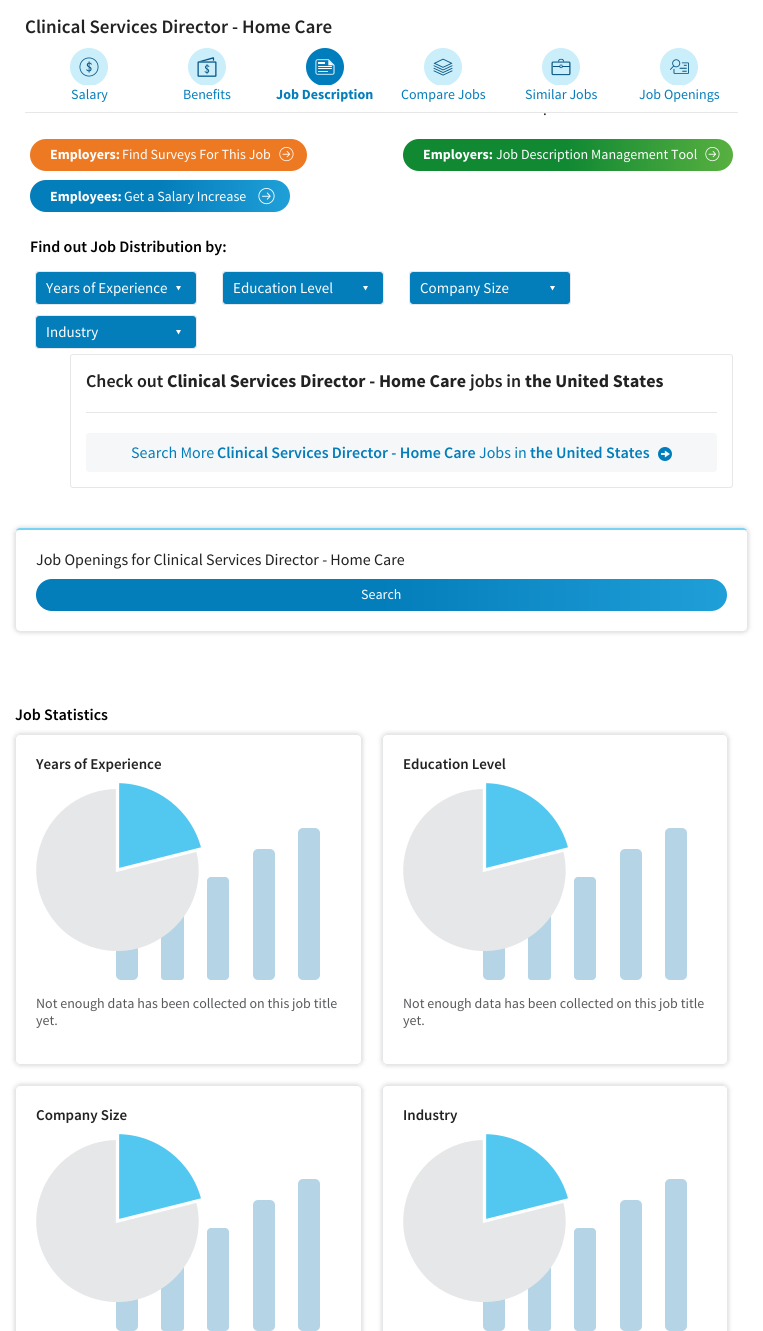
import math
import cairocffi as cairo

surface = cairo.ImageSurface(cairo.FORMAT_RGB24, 763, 1331)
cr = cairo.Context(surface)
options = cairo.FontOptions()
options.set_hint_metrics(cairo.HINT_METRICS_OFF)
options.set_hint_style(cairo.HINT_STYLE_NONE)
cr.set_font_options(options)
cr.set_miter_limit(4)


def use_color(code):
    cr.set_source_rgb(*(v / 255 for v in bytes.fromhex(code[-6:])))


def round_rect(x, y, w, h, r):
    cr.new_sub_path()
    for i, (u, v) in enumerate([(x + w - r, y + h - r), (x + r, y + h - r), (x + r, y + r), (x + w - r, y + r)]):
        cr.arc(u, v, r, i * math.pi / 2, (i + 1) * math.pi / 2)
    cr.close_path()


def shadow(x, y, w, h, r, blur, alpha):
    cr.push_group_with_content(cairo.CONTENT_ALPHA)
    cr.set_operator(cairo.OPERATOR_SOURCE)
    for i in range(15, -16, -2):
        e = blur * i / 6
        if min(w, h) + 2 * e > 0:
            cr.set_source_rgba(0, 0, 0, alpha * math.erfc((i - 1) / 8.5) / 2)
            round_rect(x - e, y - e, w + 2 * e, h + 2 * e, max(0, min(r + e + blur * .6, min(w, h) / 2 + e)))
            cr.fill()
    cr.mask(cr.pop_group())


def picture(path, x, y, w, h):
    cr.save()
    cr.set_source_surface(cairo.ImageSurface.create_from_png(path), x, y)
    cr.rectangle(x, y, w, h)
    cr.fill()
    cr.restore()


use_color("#ffffff")
cr.paint()
cr.select_font_face("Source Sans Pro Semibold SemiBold")
cr.set_font_size(19)
use_color("#212221")
cr.move_to(25, 33)
cr.show_text("Clinical Services Director - Home Care")
use_color("#e6e7e8")
cr.rectangle(25, 112, 713, 1)
cr.fill()
picture("img1.png", 70, 48, 38, 37)
cr.select_font_face("Source Sans Pro")
cr.set_font_size(14)
use_color("#047dbb")
cr.move_to(71, 99)
cr.show_text("Salary")
picture("img2.png", 188, 48, 38, 37)
cr.move_to(183, 99)
cr.show_text("Benefits")
picture("img3.png", 306, 48, 38, 37)
cr.select_font_face("Source Sans Pro", cairo.FONT_SLANT_NORMAL, cairo.FONT_WEIGHT_BOLD)
cr.move_to(276, 99)
cr.show_text("Job Description")
picture("img4.png", 424, 48, 38, 37)
cr.select_font_face("Source Sans Pro")
cr.move_to(401, 99)
cr.show_text("Compare Jobs")
picture("img5.png", 542, 48, 38, 37)
cr.move_to(525, 99)
cr.show_text("Similar Jobs")
picture("img6.png", 660, 48, 38, 37)
cr.move_to(639, 99)
cr.show_text("Job Openings")
cr.set_font_size(15)
use_color("#212221")
cr.move_to(543, 115)
cr.show_text(".")
use_color("#ed7a23")
round_rect(30, 139, 277, 32, 16)
cr.fill()
cr.select_font_face("Source Sans Pro", cairo.FONT_SLANT_NORMAL, cairo.FONT_WEIGHT_BOLD)
cr.set_font_size(14)
use_color("#ffffff")
cr.move_to(50, 159)
cr.show_text("Employers:")
cr.select_font_face("Source Sans Pro")
cr.move_to(122, 159)
cr.show_text("Find Surveys For This Job")
picture("img7.png", 279, 147, 15, 15)
gradient = cairo.LinearGradient(403, 155, 733, 155)
gradient.add_color_stop_rgba(0, 0.067, 0.537, 0.2, 1)
gradient.add_color_stop_rgba(0.5, 0.067, 0.537, 0.2, 1)
gradient.add_color_stop_rgba(1, 0.345, 0.69, 0.251, 1)
cr.set_source(gradient)
round_rect(403, 139, 330, 32, 16)
cr.fill()
cr.select_font_face("Source Sans Pro", cairo.FONT_SLANT_NORMAL, cairo.FONT_WEIGHT_BOLD)
use_color("#ffffff")
cr.move_to(423, 159)
cr.show_text("Employers:")
cr.select_font_face("Source Sans Pro")
cr.move_to(496, 159)
cr.show_text("Job Description Management Tool")
picture("img8.png", 705, 147, 15, 15)
gradient = cairo.LinearGradient(30, 196, 290, 196)
gradient.add_color_stop_rgba(0, 0.016, 0.49, 0.733, 1)
gradient.add_color_stop_rgba(0.5, 0.016, 0.49, 0.733, 1)
gradient.add_color_stop_rgba(1, 0.122, 0.624, 0.847, 1)
cr.set_source(gradient)
round_rect(30, 180, 260, 32, 16)
cr.fill()
cr.select_font_face("Source Sans Pro", cairo.FONT_SLANT_NORMAL, cairo.FONT_WEIGHT_BOLD)
use_color("#ffffff")
cr.move_to(50, 201)
cr.show_text("Employees:")
cr.select_font_face("Source Sans Pro")
cr.move_to(124, 201)
cr.show_text("Get a Salary Increase")
picture("img9.png", 258, 188, 17, 17)
cr.select_font_face("Source Sans Pro Semibold SemiBold")
cr.set_font_size(16)
use_color("#000000")
cr.move_to(30, 252)
cr.show_text("Find out Job Distribution by:")
round_rect(35.5, 271.5, 161, 33, 2.5)
use_color("#e6e7e8")
cr.set_line_width(1)
cr.stroke()
use_color("#047dbb")
round_rect(36, 272, 160, 32, 3)
cr.fill()
cr.select_font_face("Source Sans Pro")
cr.set_font_size(15)
use_color("#ffffff")
cr.move_to(46, 293)
cr.show_text("Years of Experience")
cr.new_path()
cr.move_to(181, 286)
cr.line_to(176, 286)
cr.line_to(178.5, 290.5)
cr.close_path()
cr.fill()
round_rect(222.5, 271.5, 161, 33, 2.5)
use_color("#e6e7e8")
cr.stroke()
use_color("#047dbb")
round_rect(223, 272, 160, 32, 3)
cr.fill()
use_color("#ffffff")
cr.move_to(233, 293)
cr.show_text("Education Level")
cr.new_path()
cr.move_to(368, 286)
cr.line_to(363, 286)
cr.line_to(365.5, 290.5)
cr.close_path()
cr.fill()
round_rect(409.5, 271.5, 161, 33, 2.5)
use_color("#e6e7e8")
cr.stroke()
use_color("#047dbb")
round_rect(410, 272, 160, 32, 3)
cr.fill()
use_color("#ffffff")
cr.move_to(420, 293)
cr.show_text("Company Size")
cr.new_path()
cr.move_to(555, 286)
cr.line_to(550, 286)
cr.line_to(552.5, 290.5)
cr.close_path()
cr.fill()
round_rect(35.5, 315.5, 161, 33, 2.5)
use_color("#e6e7e8")
cr.stroke()
use_color("#047dbb")
round_rect(36, 316, 160, 32, 3)
cr.fill()
use_color("#ffffff")
cr.move_to(46, 337)
cr.show_text("Industry")
cr.new_path()
cr.move_to(181, 330)
cr.line_to(176, 330)
cr.line_to(178.5, 334.5)
cr.close_path()
cr.fill()
round_rect(70.5, 354.5, 662, 133, 2.5)
use_color("#e6e7e8")
cr.stroke()
cr.rectangle(86, 412, 631, 1)
cr.fill()
cr.select_font_face("Source Sans Pro Semibold SemiBold")
cr.set_font_size(18)
use_color("#212221")
cr.move_to(86, 387)
cr.show_text("Check out")
cr.select_font_face("Source Sans Pro", cairo.FONT_SLANT_NORMAL, cairo.FONT_WEIGHT_BOLD)
cr.move_to(167, 387)
cr.show_text("Clinical Services Director - Home Care")
cr.select_font_face("Source Sans Pro Semibold SemiBold")
cr.move_to(470, 387)
cr.show_text("jobs in")
cr.select_font_face("Source Sans Pro", cairo.FONT_SLANT_NORMAL, cairo.FONT_WEIGHT_BOLD)
cr.move_to(525, 387)
cr.show_text("the United States")
use_color("#f6f7f8")
round_rect(86, 433, 631, 39, 3)
cr.fill()
cr.select_font_face("Source Sans Pro")
cr.set_font_size(16)
use_color("#047dbb")
cr.move_to(131, 458)
cr.show_text("Search More")
cr.select_font_face("Source Sans Pro Semibold SemiBold")
cr.move_to(217, 458)
cr.show_text("Clinical Services Director - Home Care")
cr.select_font_face("Source Sans Pro")
cr.move_to(479, 458)
cr.show_text("Jobs in")
cr.select_font_face("Source Sans Pro Semibold SemiBold")
cr.move_to(530, 458)
cr.show_text("the United States")
picture("img10.png", 658, 447, 14, 14)
cr.save()
cr.set_fill_rule(cairo.FILL_RULE_EVEN_ODD)
cr.new_path()
cr.move_to(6, 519)
cr.line_to(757, 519)
cr.line_to(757, 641)
cr.line_to(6, 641)
cr.close_path()
cr.move_to(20, 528)
cr.line_to(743, 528)
cr.curve_to(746, 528, 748, 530, 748, 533)
cr.line_to(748, 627)
cr.curve_to(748, 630, 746, 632, 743, 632)
cr.line_to(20, 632)
cr.curve_to(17, 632, 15, 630, 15, 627)
cr.line_to(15, 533)
cr.curve_to(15, 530, 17, 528, 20, 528)
cr.close_path()
cr.clip()
use_color("#060606")
shadow(15, 528, 733, 104, 5, 2.5, 0.2)
cr.restore()
use_color("#77d5f3")
cr.new_path()
cr.move_to(20, 528)
cr.curve_to(18, 528, 17, 529, 16, 530)
cr.line_to(17, 531)
cr.curve_to(17, 530, 19, 530, 20, 530)
cr.line_to(743, 530)
cr.curve_to(744, 530, 746, 530, 746, 531)
cr.line_to(747, 530)
cr.curve_to(746, 529, 745, 528, 743, 528)
cr.close_path()
cr.fill()
use_color("#e6e7e8")
cr.new_path()
cr.move_to(748, 627)
cr.line_to(748, 533)
cr.curve_to(748, 532, 748, 531, 747, 530)
cr.line_to(746, 531)
cr.line_to(747, 533)
cr.line_to(747, 627)
cr.line_to(746, 630)
cr.line_to(747, 631)
cr.curve_to(748, 630, 748, 628, 748, 627)
cr.close_path()
cr.fill()
cr.new_path()
cr.move_to(20, 632)
cr.line_to(743, 632)
cr.curve_to(744, 632, 746, 632, 747, 631)
cr.line_to(746, 630)
cr.line_to(743, 631)
cr.line_to(20, 631)
cr.line_to(17, 630)
cr.line_to(16, 631)
cr.curve_to(17, 632, 18, 632, 20, 632)
cr.close_path()
cr.fill()
cr.new_path()
cr.move_to(15, 533)
cr.line_to(15, 628)
cr.line_to(16, 631)
cr.line_to(17, 630)
cr.line_to(16, 627)
cr.line_to(16, 533)
cr.line_to(17, 531)
cr.line_to(16, 530)
cr.close_path()
cr.fill()
cr.select_font_face("Source Sans Pro")
use_color("#212221")
cr.move_to(36, 565)
cr.show_text("Job Openings for Clinical Services Director - Home Care")
gradient = cairo.LinearGradient(36, 595, 727, 595)
gradient.add_color_stop_rgba(0, 0.016, 0.49, 0.733, 1)
gradient.add_color_stop_rgba(0.5, 0.016, 0.49, 0.733, 1)
gradient.add_color_stop_rgba(1, 0.122, 0.624, 0.847, 1)
cr.set_source(gradient)
round_rect(36, 579, 691, 32, 16)
cr.fill()
cr.set_font_size(14)
use_color("#ffffff")
cr.move_to(361, 599)
cr.show_text("Search")
cr.select_font_face("Source Sans Pro Semibold SemiBold")
cr.set_font_size(16)
use_color("#000000")
cr.move_to(15, 720)
cr.show_text("Job Statistics")
cr.save()
cr.set_fill_rule(cairo.FILL_RULE_EVEN_ODD)
cr.new_path()
cr.move_to(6, 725)
cr.line_to(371, 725)
cr.line_to(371, 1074)
cr.line_to(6, 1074)
cr.close_path()
cr.move_to(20, 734)
cr.line_to(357, 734)
cr.curve_to(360, 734, 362, 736, 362, 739)
cr.line_to(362, 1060)
cr.curve_to(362, 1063, 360, 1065, 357, 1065)
cr.line_to(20, 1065)
cr.curve_to(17, 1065, 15, 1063, 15, 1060)
cr.line_to(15, 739)
cr.curve_to(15, 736, 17, 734, 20, 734)
cr.close_path()
cr.clip()
use_color("#060606")
shadow(15, 734, 347, 331, 5, 2.5, 0.2)
cr.restore()
round_rect(15.5, 734.5, 346, 330, 4.5)
use_color("#e6e7e8")
cr.stroke()
cr.set_font_size(15)
use_color("#212221")
cr.move_to(36, 769)
cr.show_text("Years of Experience")
use_color("#b5d4e5")
round_rect(253, 849, 22, 131, 5)
cr.fill()
round_rect(298, 828, 22, 152, 5)
cr.fill()
round_rect(116, 862, 22, 118, 5)
cr.fill()
round_rect(207, 877, 22, 103, 4)
cr.fill()
round_rect(161, 903, 23, 77, 3)
cr.fill()
use_color("#e6e7e8")
cr.set_fill_rule(cairo.FILL_RULE_EVEN_ODD)
cr.new_path()
cr.move_to(117, 870)
cr.line_to(196, 850)
cr.curve_to(205, 884, 191, 919, 161, 938)
cr.curve_to(132, 957, 95, 955, 67, 934)
cr.curve_to(40, 912, 29, 876, 41, 843)
cr.curve_to(52, 811, 83, 789, 117, 789)
cr.close_path()
cr.fill()
use_color("#52c7ef")
cr.new_path()
cr.move_to(117, 870)
cr.line_to(117, 782)
cr.curve_to(158, 782, 193, 809, 203, 848)
cr.close_path()
cr.fill()
cr.save()
cr.set_fill_rule(cairo.FILL_RULE_WINDING)
cr.rectangle(36, 780, 285, 200)
cr.clip()
cr.new_path()
cr.move_to(117.5, 870)
cr.line_to(117.5, 781.5)
cr.curve_to(157.5, 781.5, 193, 809, 203, 848.5)
cr.close_path()
use_color("#ffffff")
cr.set_line_width(3.3)
cr.stroke()
cr.restore()
cr.select_font_face("Source Sans Pro")
cr.set_font_size(14)
use_color("#58595b")
cr.move_to(36, 1008)
cr.show_text("Not enough data has been collected on this job title")
cr.move_to(36, 1025)
cr.show_text("yet.")
cr.save()
cr.new_path()
cr.move_to(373, 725)
cr.line_to(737, 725)
cr.line_to(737, 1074)
cr.line_to(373, 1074)
cr.close_path()
cr.move_to(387, 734)
cr.line_to(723, 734)
cr.curve_to(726, 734, 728, 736, 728, 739)
cr.line_to(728, 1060)
cr.curve_to(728, 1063, 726, 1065, 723, 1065)
cr.line_to(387, 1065)
cr.curve_to(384, 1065, 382, 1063, 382, 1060)
cr.line_to(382, 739)
cr.curve_to(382, 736, 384, 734, 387, 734)
cr.close_path()
cr.clip()
use_color("#060606")
shadow(382, 734, 346, 331, 5, 2.5, 0.2)
cr.restore()
round_rect(382.5, 734.5, 345, 330, 4.5)
use_color("#e6e7e8")
cr.stroke()
cr.select_font_face("Source Sans Pro Semibold SemiBold")
cr.set_font_size(15)
use_color("#212221")
cr.move_to(403, 769)
cr.show_text("Education Level")
use_color("#b5d4e5")
round_rect(620, 849, 22, 131, 5)
cr.fill()
round_rect(665, 828, 22, 152, 5)
cr.fill()
round_rect(483, 862, 22, 118, 5)
cr.fill()
round_rect(574, 877, 22, 103, 4)
cr.fill()
round_rect(528, 903, 23, 77, 3)
cr.fill()
use_color("#e6e7e8")
cr.new_path()
cr.move_to(484, 870)
cr.line_to(563, 850)
cr.curve_to(572, 884, 558, 919, 528, 938)
cr.curve_to(499, 957, 462, 955, 434, 934)
cr.curve_to(407, 912, 396, 876, 408, 843)
cr.curve_to(419, 811, 450, 789, 484, 789)
cr.close_path()
cr.fill()
use_color("#52c7ef")
cr.new_path()
cr.move_to(484, 870)
cr.line_to(484, 782)
cr.curve_to(525, 782, 560, 809, 570, 848)
cr.close_path()
cr.fill()
cr.save()
cr.set_fill_rule(cairo.FILL_RULE_WINDING)
cr.rectangle(403, 780, 284, 200)
cr.clip()
cr.new_path()
cr.move_to(484.5, 870)
cr.line_to(484.5, 781.5)
cr.curve_to(524.5, 781.5, 560, 809, 570, 848.5)
cr.close_path()
use_color("#ffffff")
cr.set_line_width(3.3)
cr.stroke()
cr.restore()
cr.select_font_face("Source Sans Pro")
cr.set_font_size(14)
use_color("#58595b")
cr.move_to(403, 1008)
cr.show_text("Not enough data has been collected on this job title")
cr.move_to(403, 1025)
cr.show_text("yet.")
cr.save()
cr.new_path()
cr.move_to(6, 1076)
cr.line_to(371, 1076)
cr.line_to(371, 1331)
cr.line_to(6, 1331)
cr.close_path()
cr.move_to(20, 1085)
cr.line_to(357, 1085)
cr.curve_to(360, 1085, 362, 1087, 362, 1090)
cr.line_to(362, 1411)
cr.curve_to(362, 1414, 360, 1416, 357, 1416)
cr.line_to(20, 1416)
cr.curve_to(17, 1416, 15, 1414, 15, 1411)
cr.line_to(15, 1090)
cr.curve_to(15, 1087, 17, 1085, 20, 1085)
cr.close_path()
cr.clip()
use_color("#060606")
shadow(15, 1085, 347, 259, 5, 2.5, 0.2)
cr.restore()
round_rect(15.5, 1085.5, 346, 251, 4.5)
use_color("#e6e7e8")
cr.stroke()
cr.select_font_face("Source Sans Pro Semibold SemiBold")
cr.set_font_size(15)
use_color("#212221")
cr.move_to(36, 1120)
cr.show_text("Company Size")
use_color("#b5d4e5")
round_rect(253, 1200, 22, 131, 5)
cr.fill()
round_rect(298, 1179, 22, 152, 5)
cr.fill()
round_rect(116, 1213, 22, 118, 5)
cr.fill()
round_rect(207, 1228, 22, 103, 4)
cr.fill()
round_rect(161, 1254, 23, 77, 3)
cr.fill()
use_color("#e6e7e8")
cr.new_path()
cr.move_to(117, 1221)
cr.line_to(196, 1201)
cr.curve_to(205, 1235, 191, 1270, 161, 1289)
cr.curve_to(132, 1308, 95, 1306, 67, 1285)
cr.curve_to(40, 1263, 29, 1227, 41, 1194)
cr.curve_to(52, 1162, 83, 1140, 117, 1140)
cr.close_path()
cr.fill()
use_color("#52c7ef")
cr.new_path()
cr.move_to(117, 1221)
cr.line_to(117, 1133)
cr.curve_to(158, 1133, 193, 1160, 203, 1199)
cr.close_path()
cr.fill()
cr.save()
cr.set_fill_rule(cairo.FILL_RULE_WINDING)
cr.rectangle(36, 1131, 285, 200)
cr.clip()
cr.new_path()
cr.move_to(117.5, 1221)
cr.line_to(117.5, 1132.5)
cr.curve_to(157.5, 1132.5, 193, 1160, 203, 1199.5)
cr.close_path()
use_color("#ffffff")
cr.set_line_width(3.3)
cr.stroke()
cr.restore()
cr.save()
cr.new_path()
cr.move_to(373, 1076)
cr.line_to(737, 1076)
cr.line_to(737, 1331)
cr.line_to(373, 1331)
cr.close_path()
cr.move_to(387, 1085)
cr.line_to(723, 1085)
cr.curve_to(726, 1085, 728, 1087, 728, 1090)
cr.line_to(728, 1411)
cr.curve_to(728, 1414, 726, 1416, 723, 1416)
cr.line_to(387, 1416)
cr.curve_to(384, 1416, 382, 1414, 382, 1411)
cr.line_to(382, 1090)
cr.curve_to(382, 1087, 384, 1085, 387, 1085)
cr.close_path()
cr.clip()
use_color("#060606")
shadow(382, 1085, 346, 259, 5, 2.5, 0.2)
cr.restore()
round_rect(382.5, 1085.5, 345, 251, 4.5)
use_color("#e6e7e8")
cr.stroke()
use_color("#212221")
cr.move_to(403, 1120)
cr.show_text("Industry")
use_color("#b5d4e5")
round_rect(620, 1200, 22, 131, 5)
cr.fill()
round_rect(665, 1179, 22, 152, 5)
cr.fill()
round_rect(483, 1213, 22, 118, 5)
cr.fill()
round_rect(574, 1228, 22, 103, 4)
cr.fill()
round_rect(528, 1254, 23, 77, 3)
cr.fill()
use_color("#e6e7e8")
cr.new_path()
cr.move_to(484, 1221)
cr.line_to(563, 1201)
cr.curve_to(572, 1235, 558, 1270, 528, 1289)
cr.curve_to(499, 1308, 462, 1306, 434, 1285)
cr.curve_to(407, 1263, 396, 1227, 408, 1194)
cr.curve_to(419, 1162, 450, 1140, 484, 1140)
cr.close_path()
cr.fill()
use_color("#52c7ef")
cr.new_path()
cr.move_to(484, 1221)
cr.line_to(484, 1133)
cr.curve_to(525, 1133, 560, 1160, 570, 1199)
cr.close_path()
cr.fill()
cr.save()
cr.set_fill_rule(cairo.FILL_RULE_WINDING)
cr.rectangle(403, 1131, 284, 200)
cr.clip()
cr.new_path()
cr.move_to(484.5, 1221)
cr.line_to(484.5, 1132.5)
cr.curve_to(524.5, 1132.5, 560, 1160, 570, 1199.5)
cr.close_path()
use_color("#ffffff")
cr.set_line_width(3.3)
cr.stroke()
cr.restore()
surface.write_to_png("result.png")
